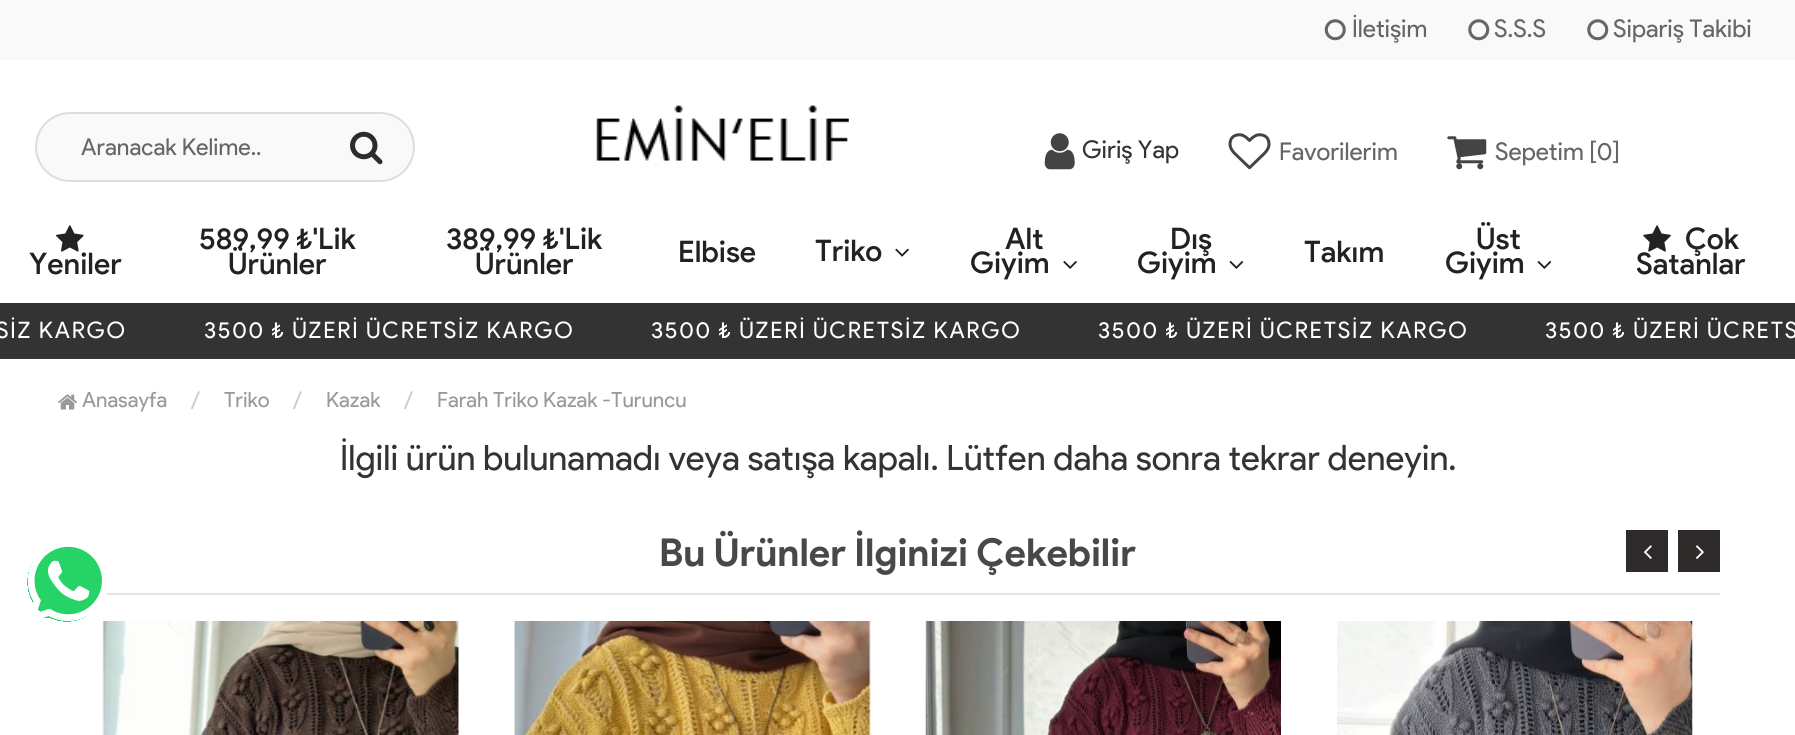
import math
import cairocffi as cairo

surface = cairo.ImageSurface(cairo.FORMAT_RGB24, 1795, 735)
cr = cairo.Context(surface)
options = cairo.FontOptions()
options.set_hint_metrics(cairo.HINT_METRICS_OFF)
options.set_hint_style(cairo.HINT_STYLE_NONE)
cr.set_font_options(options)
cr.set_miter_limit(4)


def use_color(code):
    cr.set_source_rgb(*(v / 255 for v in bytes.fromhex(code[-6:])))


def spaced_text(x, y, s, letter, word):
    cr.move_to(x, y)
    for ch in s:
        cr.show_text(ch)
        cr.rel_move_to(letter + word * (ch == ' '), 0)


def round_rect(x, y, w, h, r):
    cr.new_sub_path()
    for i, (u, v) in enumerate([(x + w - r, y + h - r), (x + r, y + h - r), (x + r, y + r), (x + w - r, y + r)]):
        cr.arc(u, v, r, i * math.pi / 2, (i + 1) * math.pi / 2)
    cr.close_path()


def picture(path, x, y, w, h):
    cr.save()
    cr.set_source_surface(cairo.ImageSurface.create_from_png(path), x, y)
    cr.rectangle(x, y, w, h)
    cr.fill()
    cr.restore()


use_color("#ffffff")
cr.paint()
use_color("#f9f9f9")
cr.rectangle(0, 0, 1795, 60)
cr.fill()
picture("img1.png", 1324, 19, 22, 22)
cr.select_font_face("Product Sans")
cr.set_font_size(24.5)
use_color("#666666")
cr.move_to(1352, 37)
cr.show_text("İletişim")
picture("img2.png", 1468, 19, 22, 22)
cr.move_to(1494, 37)
cr.show_text("S.S.S")
picture("img2.png", 1587, 19, 22, 22)
cr.move_to(1613, 37)
cr.show_text("Sipariş Takibi")
use_color("#f9f9f9")
round_rect(36, 113, 378, 68, 34)
cr.fill_preserve()
use_color("#dddddd")
cr.stroke()
cr.set_font_size(23.25)
use_color("#666666")
cr.move_to(81, 155)
cr.show_text("Aranacak Kelime..")
picture("img3.png", 350, 131, 33, 34)
picture("img4.png", 596, 105, 253, 56)
picture("img5.png", 1044, 133, 31, 37)
cr.set_font_size(24.5)
use_color("#333333")
cr.move_to(1082, 158)
cr.show_text("Giriş Yap")
picture("img6.png", 1228, 133, 43, 37)
use_color("#666666")
cr.move_to(1279, 160)
cr.show_text("Favorilerim")
picture("img7.png", 1447, 136, 40, 34)
cr.move_to(1495, 160)
cr.show_text("Sepetim [0]")
picture("img8.png", 56, 225, 28, 27)
cr.select_font_face("Product Sans Medium")
cr.set_font_size(29.75)
use_color("#222222")
cr.move_to(29, 274)
cr.show_text("Yeniler")
cr.move_to(199, 249)
cr.show_text("589,99 ₺'Lik")
cr.move_to(228, 274)
cr.show_text("Ürünler")
cr.move_to(446, 249)
cr.show_text("389,99 ₺'Lik")
cr.move_to(475, 274)
cr.show_text("Ürünler")
cr.move_to(678, 262)
cr.show_text("Elbise")
cr.move_to(815, 261)
cr.show_text("Triko")
picture("img9.png", 895, 248, 14, 9)
cr.move_to(1005, 249)
cr.show_text("Alt")
cr.move_to(970, 273)
cr.show_text("Giyim")
picture("img10.png", 1063, 261, 14, 8)
cr.move_to(1170, 249)
cr.show_text("Dış")
cr.move_to(1137, 273)
cr.show_text("Giyim")
picture("img11.png", 1229, 261, 15, 8)
cr.move_to(1304, 262)
cr.show_text("Takım")
cr.move_to(1476, 249)
cr.show_text("Üst")
cr.move_to(1445, 273)
cr.show_text("Giyim")
picture("img11.png", 1537, 261, 15, 8)
picture("img12.png", 1643, 225, 28, 27)
cr.move_to(1685, 249)
cr.show_text("Çok")
cr.move_to(1636, 274)
cr.show_text("Satanlar")
use_color("#333333")
cr.rectangle(0, 303, 1795, 56)
cr.fill()
cr.select_font_face("Product Sans")
cr.set_font_size(22.75)
use_color("#ffffff")
spaced_text(-4, 338, "SİZ KARGO", 1.75, 0)
spaced_text(204, 338, "3500 ₺ ÜZERİ ÜCRETSİZ KARGO", 1.75, 0)
spaced_text(651, 338, "3500 ₺ ÜZERİ ÜCRETSİZ KARGO", 1.75, 0)
spaced_text(1098, 338, "3500 ₺ ÜZERİ ÜCRETSİZ KARGO", 1.75, 0)
spaced_text(1545, 338, "3500 ₺ ÜZERİ ÜCRETS", 1.75, 0)
gradient = cairo.RadialGradient(67, 582, 0, 67, 582, 63)
gradient.add_color_stop_rgba(0.63, 0.145, 0.827, 0.4, 1)
gradient.add_color_stop_rgba(0.63, 0.145, 0.827, 0.4, 0)
cr.set_source(gradient)
cr.rectangle(27, 546, 75, 76)
cr.fill()
use_color("#25d366")
cr.rectangle(44, 615, 5, 3)
cr.fill()
picture("img17.png", 102, 621, 357, 114)
use_color("#e5e5e5")
cr.rectangle(106, 593, 1614, 2)
cr.fill()
picture("img13.png", 27, 542, 80, 80)
picture("img14.png", 58, 394, 19, 16)
cr.set_font_size(21)
use_color("#999999")
cr.move_to(82, 407)
cr.show_text("Anasayfa")
cr.set_font_size(24.5)
use_color("#cccccc")
cr.move_to(190, 409)
cr.show_text("/")
cr.set_font_size(21)
use_color("#999999")
cr.move_to(224, 407)
cr.show_text("Triko")
cr.set_font_size(24.5)
use_color("#cccccc")
cr.move_to(292, 409)
cr.show_text("/")
cr.set_font_size(21)
use_color("#999999")
cr.move_to(326, 407)
cr.show_text("Kazak")
cr.set_font_size(24.5)
use_color("#cccccc")
cr.move_to(403, 409)
cr.show_text("/")
cr.set_font_size(21)
use_color("#999999")
cr.move_to(437, 407)
cr.show_text("Farah Triko Kazak -Turuncu")
cr.set_font_size(35)
use_color("#333333")
cr.move_to(340, 470)
cr.show_text("İlgili ürün bulunamadı veya satışa kapalı. Lütfen daha sonra tekrar deneyin.")
use_color("#2f2b2b")
cr.rectangle(1626, 530, 42, 42)
cr.fill()
picture("img15.png", 1643, 545, 9, 14)
cr.rectangle(1678, 530, 42, 42)
cr.fill()
picture("img16.png", 1696, 545, 8, 14)
picture("img18.png", 514, 621, 357, 114)
picture("img19.png", 925, 621, 356, 114)
picture("img20.png", 1337, 621, 356, 114)
cr.select_font_face("Product Sans", cairo.FONT_SLANT_NORMAL, cairo.FONT_WEIGHT_BOLD)
cr.set_font_size(38.5)
use_color("#484848")
cr.move_to(659, 566)
cr.show_text("Bu Ürünler İlginizi Çekebilir")
surface.write_to_png("result.png")
